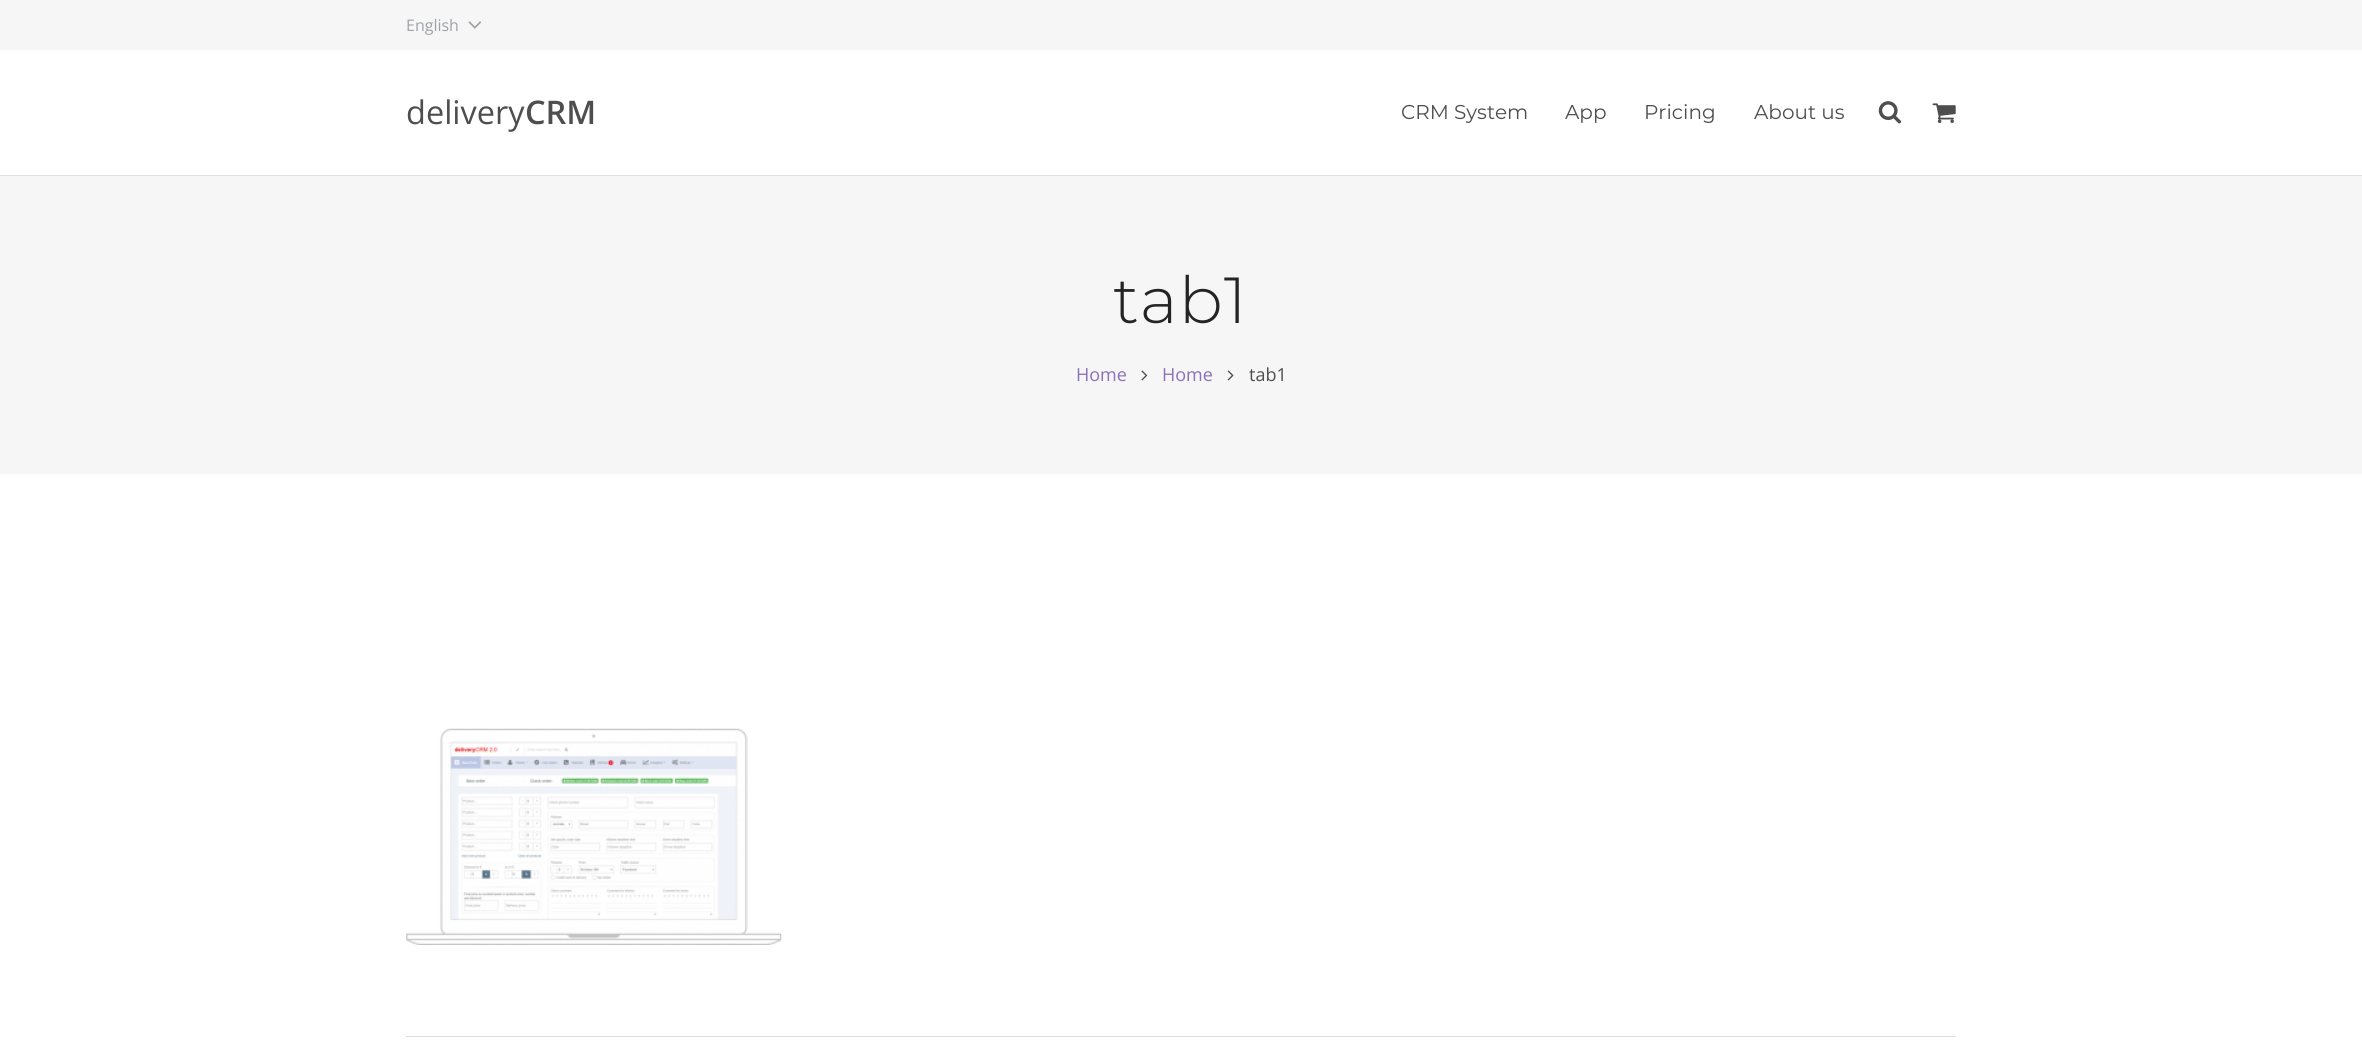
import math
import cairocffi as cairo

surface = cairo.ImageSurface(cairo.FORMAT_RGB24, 2362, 1058)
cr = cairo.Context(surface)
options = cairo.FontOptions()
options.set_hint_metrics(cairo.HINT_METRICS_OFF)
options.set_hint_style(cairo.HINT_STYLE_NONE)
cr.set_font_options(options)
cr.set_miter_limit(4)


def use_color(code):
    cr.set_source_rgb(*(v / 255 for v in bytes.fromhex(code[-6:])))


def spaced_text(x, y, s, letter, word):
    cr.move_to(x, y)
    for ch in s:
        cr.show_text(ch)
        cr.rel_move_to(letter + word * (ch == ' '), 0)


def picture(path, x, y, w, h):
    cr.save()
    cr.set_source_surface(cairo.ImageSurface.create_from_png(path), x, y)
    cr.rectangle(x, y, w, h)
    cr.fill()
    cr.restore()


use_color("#ffffff")
cr.paint()
use_color("#f6f6f6")
cr.rectangle(0, 0, 2362, 474)
cr.fill()
cr.select_font_face("Open Sans")
cr.set_font_size(16)
use_color("#9fa3a7")
cr.move_to(406, 31)
cr.show_text("English")
picture("img1.png", 468, 21, 14, 8)
use_color("#e2e2e2")
cr.new_path()
cr.move_to(0, 175)
cr.line_to(0, 176)
cr.line_to(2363, 176)
cr.line_to(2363, 51)
cr.line_to(2362, 51)
cr.line_to(2362, 175)
cr.close_path()
cr.fill()
use_color("#ffffff")
cr.rectangle(0, 50, 2362, 125)
cr.fill()
cr.set_font_size(32.5)
use_color("#4e4e4e")
cr.move_to(406, 124)
cr.show_text("delivery")
cr.select_font_face("Open Sans SemiBold")
cr.move_to(525, 124)
cr.show_text("CRM")
cr.select_font_face("Montserrat")
cr.set_font_size(20)
cr.move_to(1401, 119)
cr.show_text("CRM System")
cr.move_to(1565, 119)
cr.show_text("App")
cr.move_to(1644, 119)
cr.show_text("Pricing")
cr.move_to(1754, 119)
cr.show_text("About us")
picture("img2.png", 1878, 101, 23, 23)
picture("img3.png", 1932, 103, 24, 20)
cr.select_font_face("Montserrat Light")
cr.set_font_size(65)
use_color("#242424")
spaced_text(1113, 323, "tab1", 1, 0)
cr.select_font_face("Open Sans")
cr.set_font_size(18)
use_color("#8a71b8")
cr.move_to(1076, 381)
cr.show_text("Home")
picture("img4.png", 1141, 370, 7, 11)
cr.move_to(1162, 381)
cr.show_text("Home")
picture("img5.png", 1227, 370, 7, 11)
use_color("#4e4e4e")
cr.move_to(1249, 381)
cr.show_text("tab1")
picture("img6.png", 406, 728, 376, 217)
use_color("#dedede")
cr.rectangle(406, 1036, 1550, 1)
cr.fill()
surface.write_to_png("result.png")
